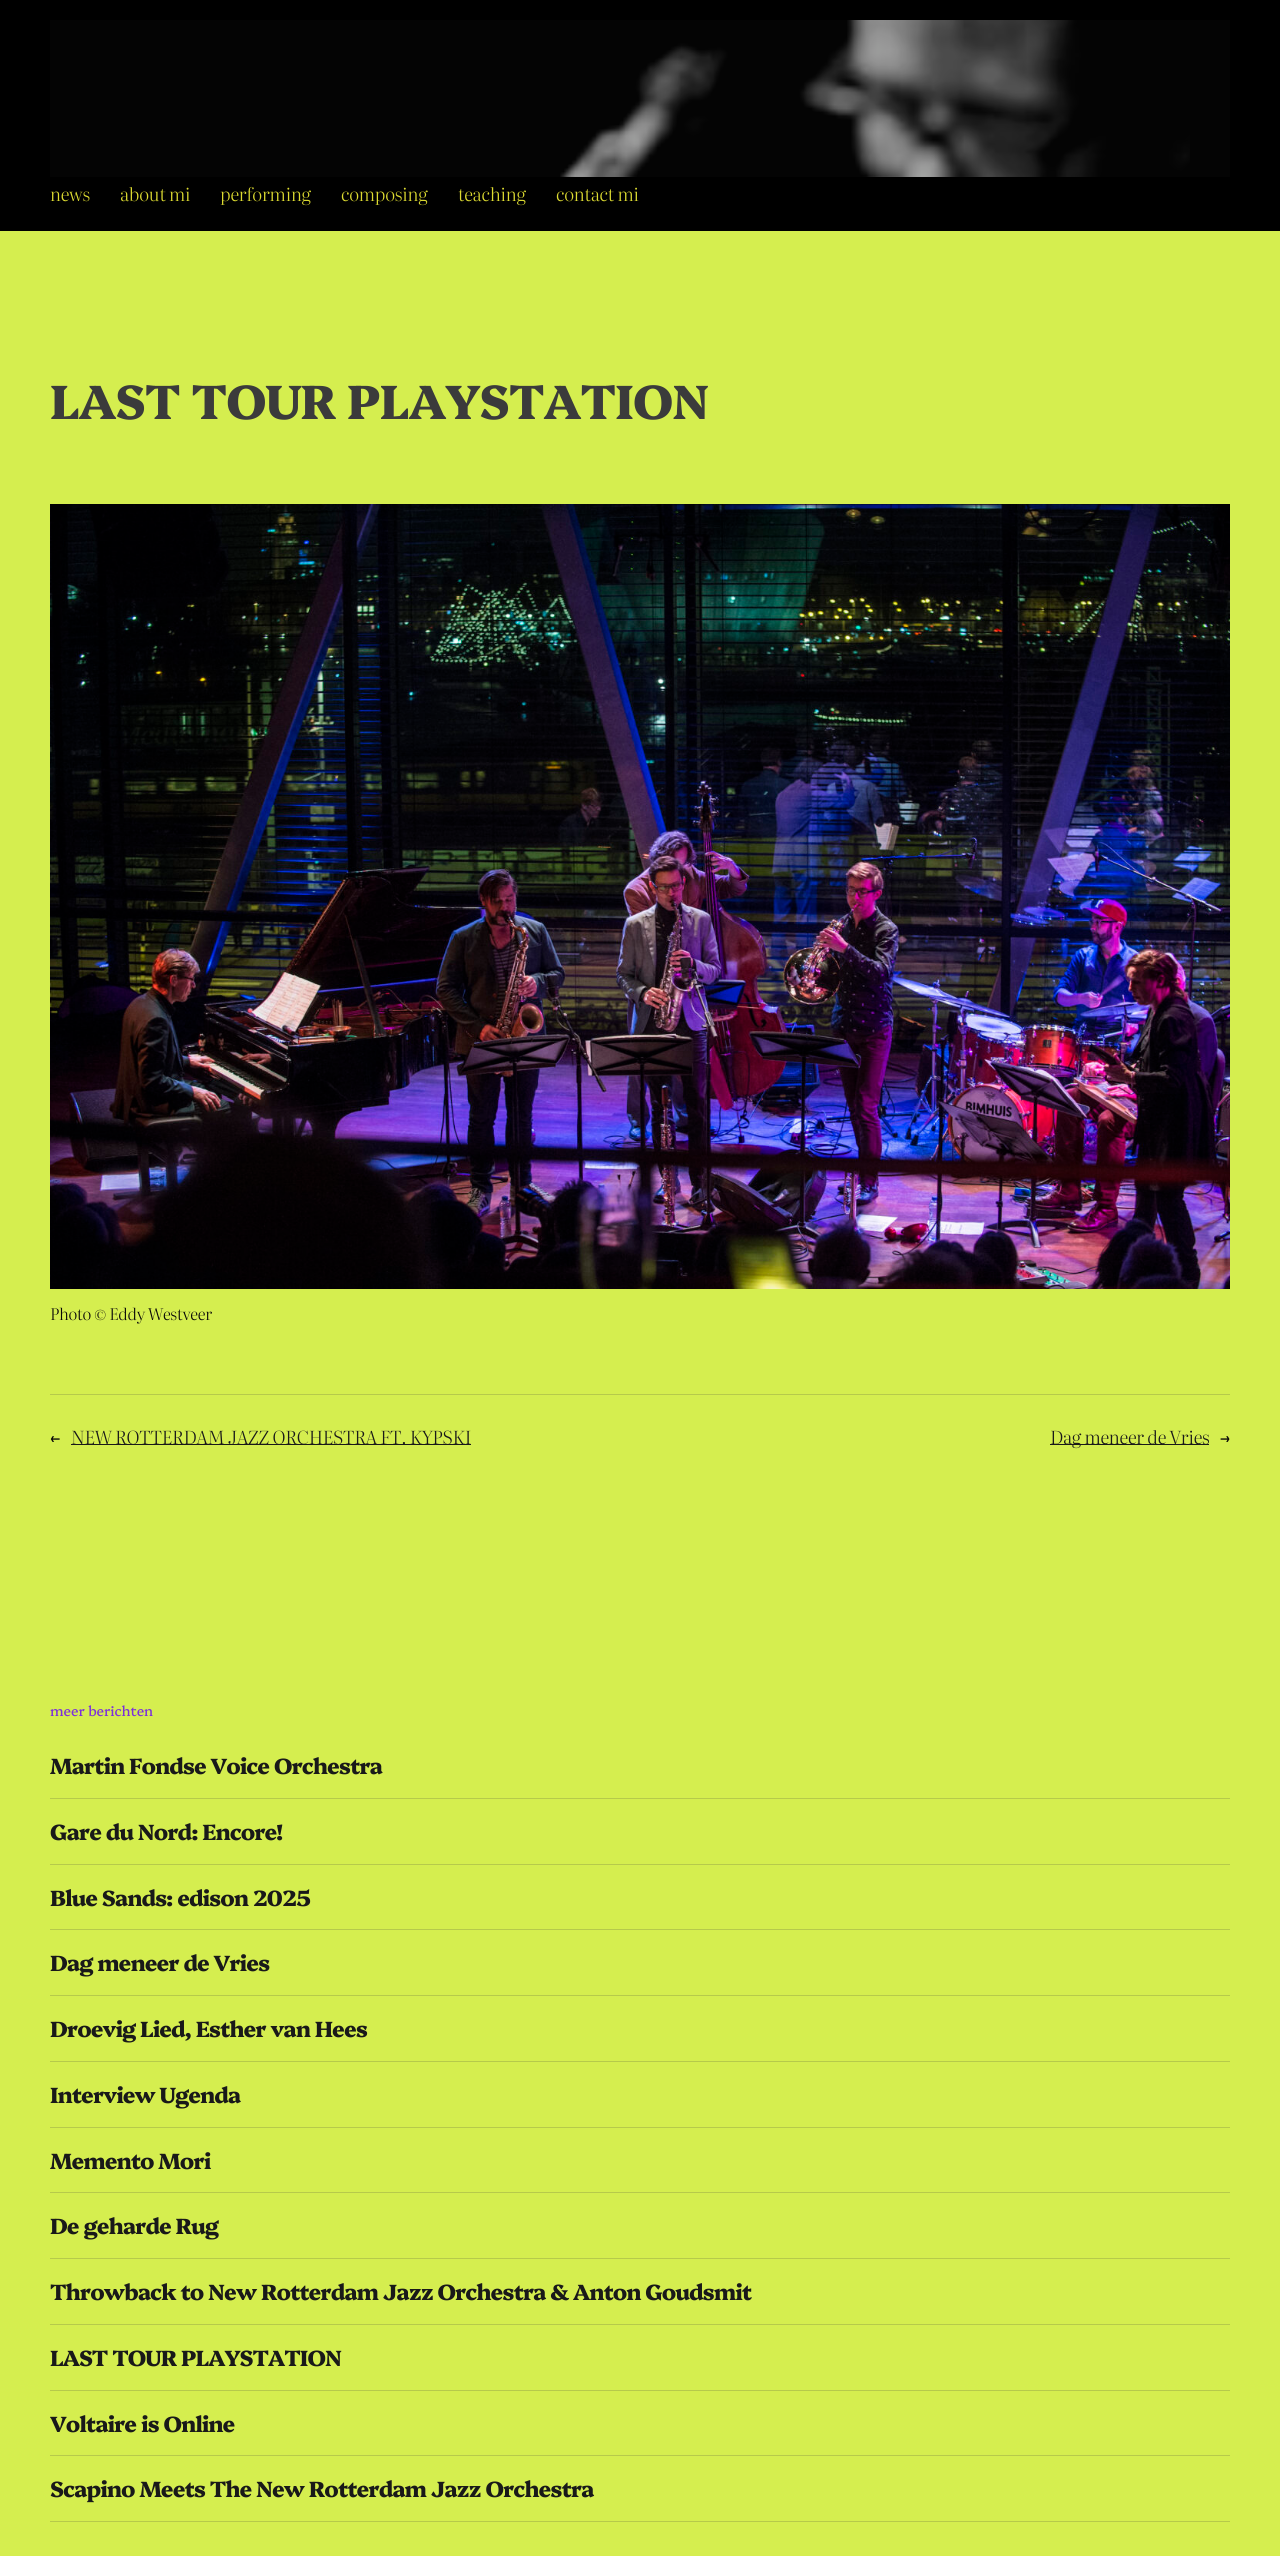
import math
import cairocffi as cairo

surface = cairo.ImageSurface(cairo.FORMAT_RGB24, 1280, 2556)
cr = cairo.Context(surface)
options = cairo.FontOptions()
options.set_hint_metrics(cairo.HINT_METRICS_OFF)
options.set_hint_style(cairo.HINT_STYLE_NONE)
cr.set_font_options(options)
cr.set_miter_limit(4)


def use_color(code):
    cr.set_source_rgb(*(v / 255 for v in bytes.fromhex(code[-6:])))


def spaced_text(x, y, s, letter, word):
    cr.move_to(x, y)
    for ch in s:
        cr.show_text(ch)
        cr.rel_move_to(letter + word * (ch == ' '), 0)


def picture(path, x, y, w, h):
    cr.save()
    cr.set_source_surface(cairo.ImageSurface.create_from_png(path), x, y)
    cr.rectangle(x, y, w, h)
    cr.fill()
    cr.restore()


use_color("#d5ee4f")
cr.paint()
use_color("#000000")
cr.rectangle(0, 0, 1280, 231)
cr.fill()
use_color("#040404")
cr.rectangle(50, 20, 1180, 157)
cr.fill()
picture("img1.png", 560, 20, 630, 157)
cr.select_font_face("Literata Light")
cr.set_font_size(18)
use_color("#dedc31")
spaced_text(50, 201, "news", -0.25, 0)
spaced_text(120, 201, "about mi", -0.25, 0)
spaced_text(220, 201, "performing", -0.25, 0)
spaced_text(341, 201, "composing", -0.25, 0)
spaced_text(458, 201, "teaching", -0.25, 0)
spaced_text(556, 201, "contact mi", -0.25, 0)
cr.select_font_face("Platypi ExtraBold")
cr.set_font_size(48)
use_color("#3b3b3b")
spaced_text(50, 419, "LAST TOUR PLAYSTATION", -0.95, 0)
picture("img2.png", 50, 504, 1180, 785)
cr.select_font_face("Literata Light")
cr.set_font_size(16)
use_color("#080707")
spaced_text(50, 1320, "Photo © Eddy Westveer", -0.25, 0)
use_color("#b6ca4b")
cr.rectangle(50, 1394, 1180, 1)
cr.fill()
cr.set_font_size(18)
use_color("#080707")
spaced_text(50, 1444, "←", -0.25, 0)
use_color("#191919")
cr.rectangle(71, 1444, 400, 1)
cr.fill()
spaced_text(71, 1444, "NEW ROTTERDAM JAZZ ORCHESTRA FT. KYPSKI", -0.25, 0)
cr.rectangle(1050, 1444, 159, 1)
cr.fill()
spaced_text(1050, 1444, "Dag meneer de Vries", -0.25, 0)
use_color("#080707")
spaced_text(1220, 1444, "→", -0.25, 0)
cr.select_font_face("Platypi")
cr.set_font_size(14)
use_color("#7c2fda")
spaced_text(50, 1716, "meer berichten", -0.1, 0)
use_color("#b6ca4b")
cr.rectangle(50, 1798, 1180, 1)
cr.fill()
cr.select_font_face("Platypi ExtraBold")
cr.set_font_size(22)
use_color("#191919")
spaced_text(50, 1774, "Martin Fondse Voice Orchestra", -0.95, 0)
use_color("#b6ca4b")
cr.rectangle(50, 1864, 1180, 1)
cr.fill()
use_color("#191919")
spaced_text(50, 1840, "Gare du Nord: Encore!", -0.95, 0)
use_color("#b6ca4b")
cr.rectangle(50, 1929, 1180, 1)
cr.fill()
use_color("#191919")
spaced_text(50, 1906, "Blue Sands: edison 2025", -0.95, 0)
use_color("#b6ca4b")
cr.rectangle(50, 1995, 1180, 1)
cr.fill()
use_color("#191919")
spaced_text(50, 1971, "Dag meneer de Vries", -0.95, 0)
use_color("#b6ca4b")
cr.rectangle(50, 2061, 1180, 1)
cr.fill()
use_color("#191919")
spaced_text(50, 2037, "Droevig Lied, Esther van Hees", -0.95, 0)
use_color("#b6ca4b")
cr.rectangle(50, 2127, 1180, 1)
cr.fill()
use_color("#191919")
spaced_text(50, 2103, "Interview Ugenda", -0.95, 0)
use_color("#b6ca4b")
cr.rectangle(50, 2192, 1180, 1)
cr.fill()
use_color("#191919")
spaced_text(50, 2169, "Memento Mori", -0.95, 0)
use_color("#b6ca4b")
cr.rectangle(50, 2258, 1180, 1)
cr.fill()
use_color("#191919")
spaced_text(50, 2234, "De geharde Rug", -0.95, 0)
use_color("#b6ca4b")
cr.rectangle(50, 2324, 1180, 1)
cr.fill()
use_color("#191919")
spaced_text(50, 2300, "Throwback to New Rotterdam Jazz Orchestra & Anton Goudsmit", -0.95, 0)
use_color("#b6ca4b")
cr.rectangle(50, 2390, 1180, 1)
cr.fill()
use_color("#191919")
spaced_text(50, 2366, "LAST TOUR PLAYSTATION", -0.95, 0)
use_color("#b6ca4b")
cr.rectangle(50, 2455, 1180, 1)
cr.fill()
use_color("#191919")
spaced_text(50, 2432, "Voltaire is Online", -0.95, 0)
use_color("#b6ca4b")
cr.rectangle(50, 2521, 1180, 1)
cr.fill()
use_color("#191919")
spaced_text(50, 2497, "Scapino Meets The New Rotterdam Jazz Orchestra", -0.95, 0)
surface.write_to_png("result.png")
